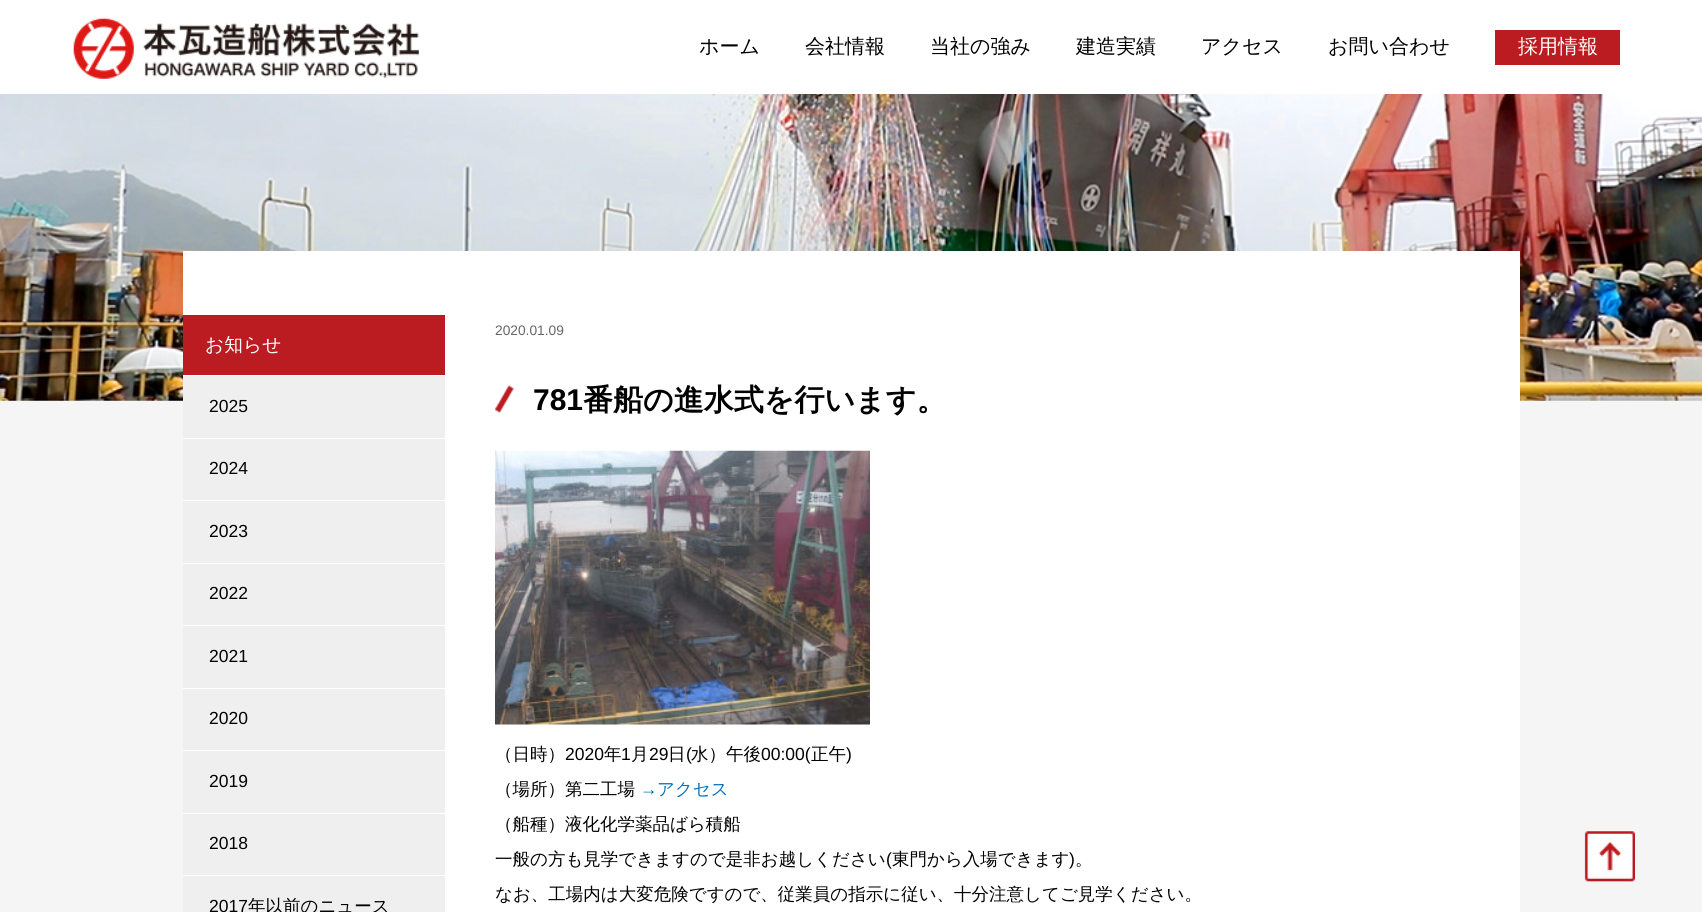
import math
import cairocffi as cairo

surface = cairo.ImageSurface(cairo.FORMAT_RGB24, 1702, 912)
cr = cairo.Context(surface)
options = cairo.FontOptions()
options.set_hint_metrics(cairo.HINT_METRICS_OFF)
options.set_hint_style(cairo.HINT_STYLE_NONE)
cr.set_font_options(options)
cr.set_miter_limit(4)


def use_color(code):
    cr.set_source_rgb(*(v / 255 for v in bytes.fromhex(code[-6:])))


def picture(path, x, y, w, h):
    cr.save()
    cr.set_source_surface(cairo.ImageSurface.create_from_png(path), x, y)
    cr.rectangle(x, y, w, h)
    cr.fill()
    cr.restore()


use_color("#f5f5f5")
cr.paint()
use_color("#ffffff")
cr.rectangle(0, 0, 1702, 94)
cr.fill()
picture("img1.png", 73, 18, 346, 61)
cr.select_font_face("WenQuanYi Zen Hei Medium")
cr.set_font_size(20)
use_color("#000000")
cr.move_to(699, 53)
cr.show_text("ホーム")
cr.move_to(805, 53)
cr.show_text("会社情報")
cr.move_to(930, 53)
cr.show_text("当社の強み")
cr.move_to(1076, 53)
cr.show_text("建造実績")
cr.move_to(1201, 53)
cr.show_text("アクセス")
cr.move_to(1328, 53)
cr.show_text("お問い合わせ")
use_color("#bb1c22")
cr.rectangle(1495, 30, 125, 35)
cr.fill()
use_color("#ffffff")
cr.move_to(1518, 53)
cr.show_text("採用情報")
picture("img2.png", 0, 94, 1702, 307)
cr.rectangle(183, 251, 1337, 661)
cr.fill()
use_color("#bb1c22")
cr.rectangle(183, 315, 262, 60)
cr.fill()
cr.set_font_size(18.75)
use_color("#ffffff")
cr.move_to(205, 351)
cr.show_text("お知らせ")
use_color("#efefef")
cr.rectangle(183, 376, 262, 62)
cr.fill()
cr.select_font_face("Liberation Sans")
cr.set_font_size(17.5)
use_color("#000000")
cr.move_to(209, 412)
cr.show_text("2025")
use_color("#efefef")
cr.rectangle(183, 439, 262, 61)
cr.fill()
use_color("#000000")
cr.move_to(209, 474)
cr.show_text("2024")
use_color("#efefef")
cr.rectangle(183, 501, 262, 62)
cr.fill()
use_color("#000000")
cr.move_to(209, 537)
cr.show_text("2023")
use_color("#efefef")
cr.rectangle(183, 564, 262, 61)
cr.fill()
use_color("#000000")
cr.move_to(209, 599)
cr.show_text("2022")
use_color("#efefef")
cr.rectangle(183, 626, 262, 62)
cr.fill()
use_color("#000000")
cr.move_to(209, 662)
cr.show_text("2021")
use_color("#efefef")
cr.rectangle(183, 689, 262, 61)
cr.fill()
use_color("#000000")
cr.move_to(209, 724)
cr.show_text("2020")
use_color("#efefef")
cr.rectangle(183, 751, 262, 62)
cr.fill()
use_color("#000000")
cr.move_to(209, 787)
cr.show_text("2019")
use_color("#efefef")
cr.rectangle(183, 814, 262, 61)
cr.fill()
use_color("#000000")
cr.move_to(209, 849)
cr.show_text("2018")
use_color("#efefef")
cr.rectangle(183, 876, 262, 36)
cr.fill()
use_color("#000000")
cr.move_to(209, 912)
cr.show_text("2017")
cr.select_font_face("WenQuanYi Zen Hei Medium")
cr.move_to(248, 912)
cr.show_text("年以前のニュース")
cr.select_font_face("Liberation Sans")
cr.set_font_size(13.75)
use_color("#666666")
cr.move_to(495, 335)
cr.show_text("2020.01.09")
picture("img3.png", 495, 385, 19, 29)
cr.select_font_face("Liberation Sans", cairo.FONT_SLANT_NORMAL, cairo.FONT_WEIGHT_BOLD)
cr.set_font_size(30)
use_color("#000000")
cr.move_to(533, 410)
cr.show_text("781")
cr.select_font_face("WenQuanYi Zen Hei", cairo.FONT_SLANT_NORMAL, cairo.FONT_WEIGHT_BOLD)
cr.move_to(583, 410)
cr.show_text("番船の進水式を行います。")
picture("img4.png", 495, 450, 375, 275)
cr.select_font_face("WenQuanYi Zen Hei Medium")
cr.set_font_size(17.5)
cr.move_to(495, 760)
cr.show_text("（日時）")
cr.select_font_face("Liberation Sans")
cr.move_to(565, 760)
cr.show_text("2020")
cr.select_font_face("WenQuanYi Zen Hei Medium")
cr.move_to(604, 760)
cr.show_text("年")
cr.select_font_face("Liberation Sans")
cr.move_to(621, 760)
cr.show_text("1")
cr.select_font_face("WenQuanYi Zen Hei Medium")
cr.move_to(631, 760)
cr.show_text("月")
cr.select_font_face("Liberation Sans")
cr.move_to(649, 760)
cr.show_text("29")
cr.select_font_face("WenQuanYi Zen Hei Medium")
cr.move_to(668, 760)
cr.show_text("日")
cr.select_font_face("Liberation Sans")
cr.move_to(686, 760)
cr.show_text("(")
cr.select_font_face("WenQuanYi Zen Hei Medium")
cr.move_to(691, 760)
cr.show_text("水）午後")
cr.select_font_face("Liberation Sans")
cr.move_to(761, 760)
cr.show_text("00:00(")
cr.select_font_face("WenQuanYi Zen Hei Medium")
cr.move_to(811, 760)
cr.show_text("正午")
cr.select_font_face("Liberation Sans")
cr.move_to(846, 760)
cr.show_text(")")
cr.select_font_face("WenQuanYi Zen Hei Medium")
cr.move_to(495, 795)
cr.show_text("（場所）第二工場")
cr.select_font_face("Liberation Sans")
use_color("#0070c0")
cr.move_to(640, 795)
cr.show_text("→")
cr.select_font_face("WenQuanYi Zen Hei Medium")
cr.move_to(657, 795)
cr.show_text("アクセス")
use_color("#000000")
cr.move_to(495, 830)
cr.show_text("（船種）液化化学薬品ばら積船")
cr.move_to(495, 865)
cr.show_text("一般の方も見学できますので是非お越しください")
cr.select_font_face("Liberation Sans")
cr.move_to(886, 865)
cr.show_text("(")
cr.select_font_face("WenQuanYi Zen Hei Medium")
cr.move_to(892, 865)
cr.show_text("東門から入場できます")
cr.select_font_face("Liberation Sans")
cr.move_to(1069, 865)
cr.show_text(")")
cr.select_font_face("WenQuanYi Zen Hei Medium")
cr.move_to(1075, 865)
cr.show_text("。")
cr.move_to(495, 900)
cr.show_text("なお、工場内は大変危険ですので、従業員の指示に従い、十分注意してご見学ください。")
picture("img5.png", 1584, 831, 51, 51)
surface.write_to_png("result.png")
